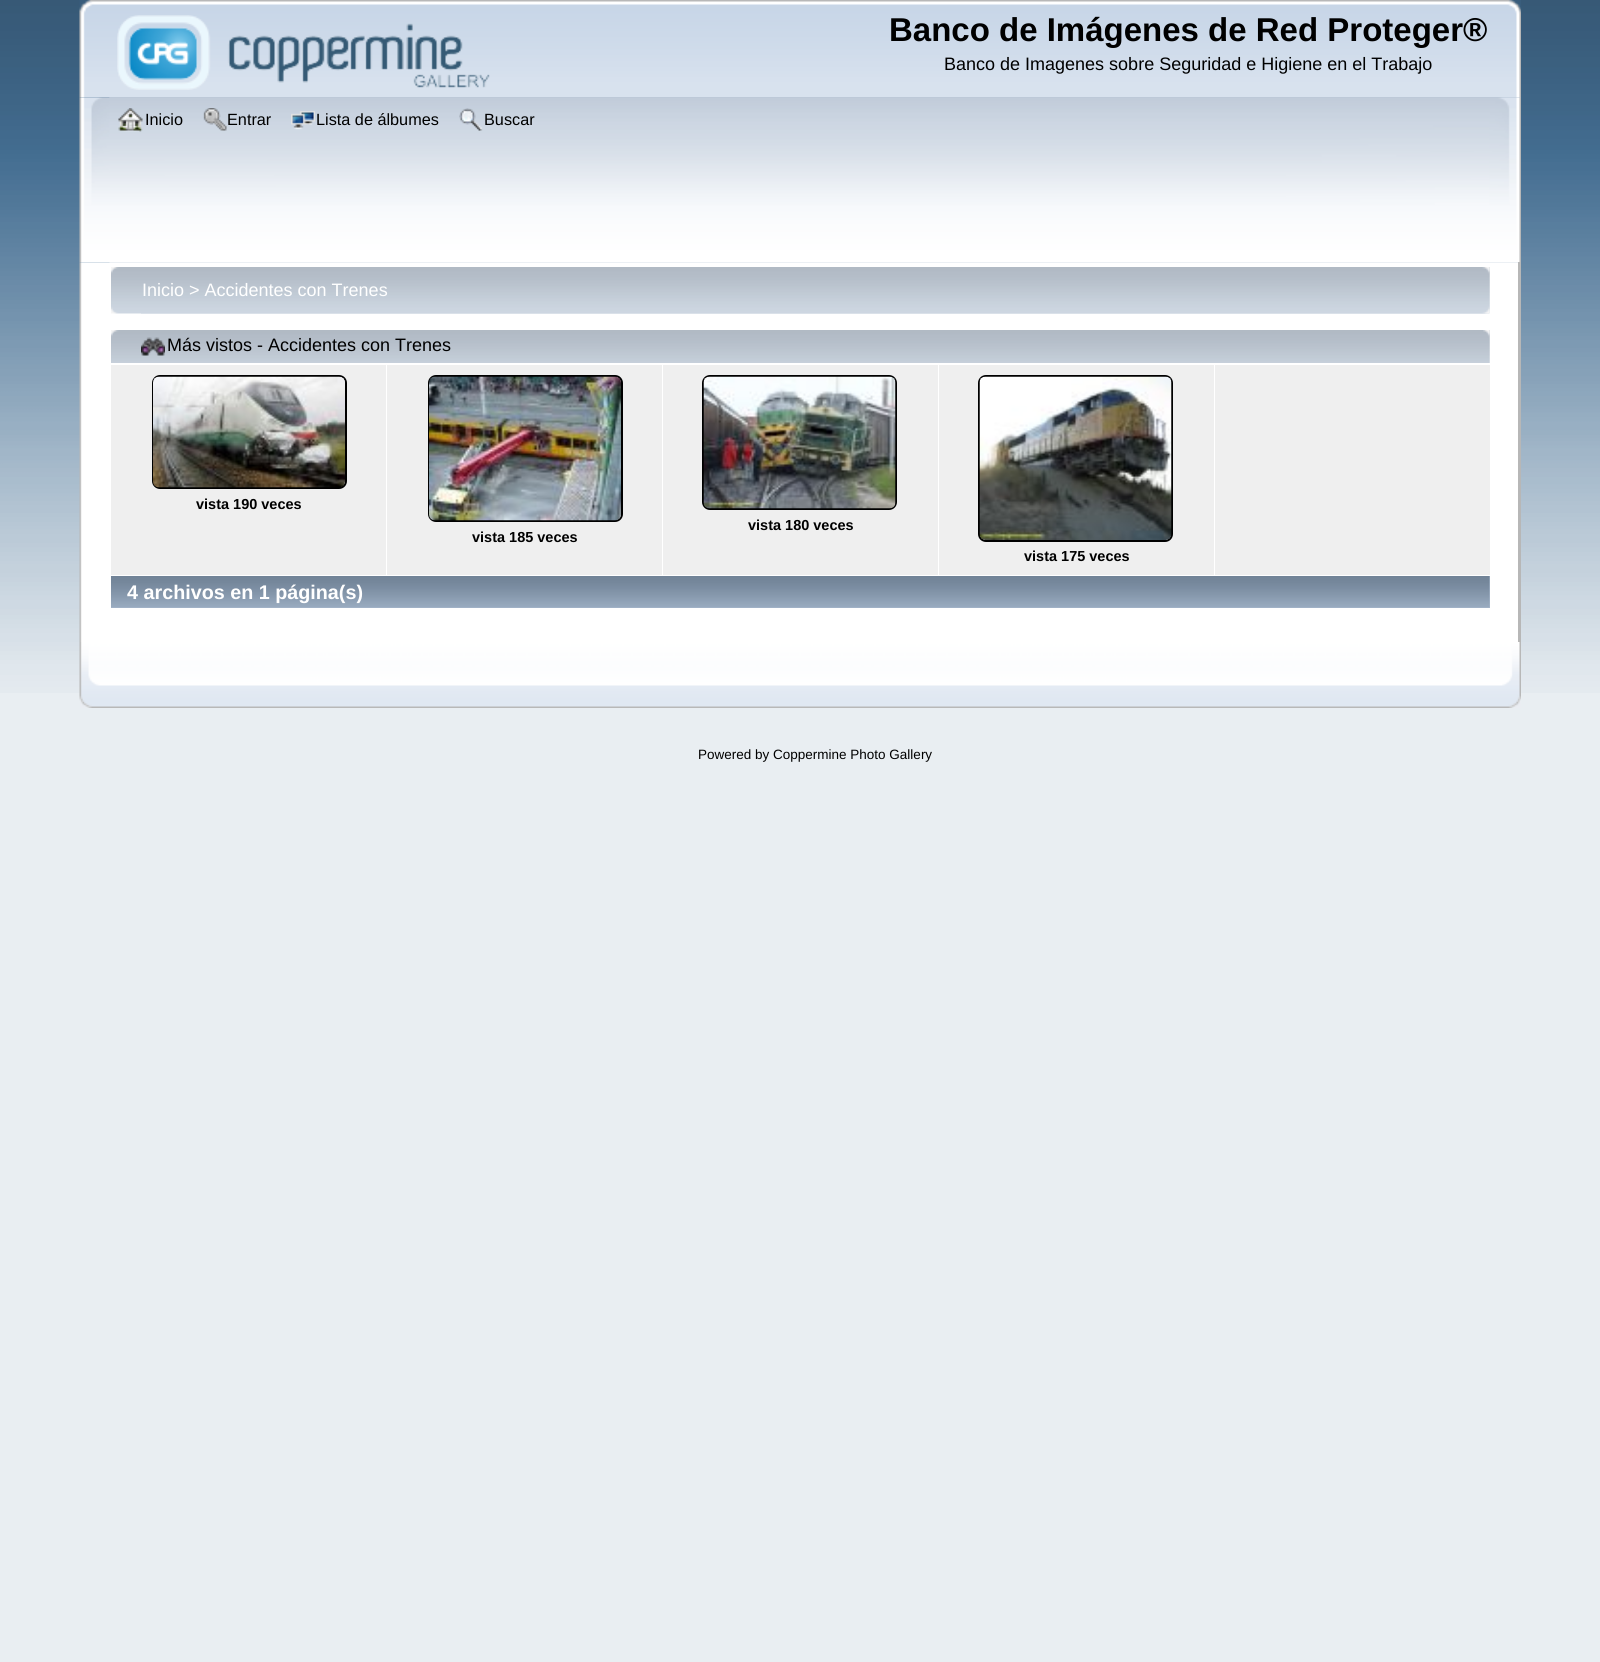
import math
import cairocffi as cairo

surface = cairo.ImageSurface(cairo.FORMAT_RGB24, 1600, 1662)
cr = cairo.Context(surface)
options = cairo.FontOptions()
options.set_hint_metrics(cairo.HINT_METRICS_OFF)
options.set_hint_style(cairo.HINT_STYLE_NONE)
cr.set_font_options(options)
cr.set_miter_limit(4)


def use_color(code):
    cr.set_source_rgb(*(v / 255 for v in bytes.fromhex(code[-6:])))


def round_rect(x, y, w, h, r):
    cr.new_sub_path()
    for i, (u, v) in enumerate([(x + w - r, y + h - r), (x + r, y + h - r), (x + r, y + r), (x + w - r, y + r)]):
        cr.arc(u, v, r, i * math.pi / 2, (i + 1) * math.pi / 2)
    cr.close_path()


def picture(path, x, y, w, h):
    cr.save()
    cr.set_source_surface(cairo.ImageSurface.create_from_png(path), x, y)
    cr.rectangle(x, y, w, h)
    cr.fill()
    cr.restore()


use_color("#e9eef2")
cr.paint()
picture("img1.png", 0, 0, 1600, 693)
picture("img2.png", 79, 0, 1442, 98)
picture("img3.png", 109, 0, 1412, 98)
picture("img4.png", 117, 15, 373, 75)
cr.select_font_face("Liberation Sans", cairo.FONT_SLANT_NORMAL, cairo.FONT_WEIGHT_BOLD)
cr.set_font_size(33)
use_color("#000000")
cr.move_to(889, 41)
cr.show_text("Banco de Imágenes de Red Proteger®")
cr.select_font_face("Liberation Sans")
cr.set_font_size(18)
cr.move_to(944, 70)
cr.show_text("Banco de Imagenes sobre Seguridad e Higiene en el Trabajo")
picture("img5.png", 79, 97, 1442, 166)
picture("img6.png", 109, 97, 1412, 166)
picture("img7.png", 118, 108, 25, 24)
cr.set_font_size(16.25)
cr.move_to(145, 125)
cr.show_text("Inicio")
picture("img8.png", 203, 108, 24, 23)
cr.move_to(227, 125)
cr.show_text("Entrar")
picture("img9.png", 291, 111, 24, 19)
cr.move_to(316, 125)
cr.show_text("Lista de álbumes")
picture("img10.png", 459, 108, 24, 23)
cr.move_to(484, 125)
cr.show_text("Buscar")
picture("img11.png", 79, 262, 1439, 380)
use_color("#b7b7b7")
cr.rectangle(1518, 262, 3, 380)
cr.fill()
picture("img12.png", 111, 267, 1379, 47)
picture("img13.png", 141, 267, 1349, 47)
cr.set_font_size(18)
use_color("#ffffff")
cr.move_to(142, 296)
cr.show_text("Inicio > Accidentes con Trenes")
picture("img14.png", 111, 330, 1379, 33)
picture("img15.png", 1483, 330, 7, 33)
picture("img16.png", 141, 337, 24, 19)
use_color("#000000")
cr.move_to(167, 351)
cr.show_text("Más vistos - Accidentes con Trenes")
use_color("#efefef")
cr.rectangle(111, 365, 275, 210)
cr.fill()
round_rect(153, 376, 193, 112, 7)
use_color("#000000")
cr.stroke()
picture("img17.png", 153, 376, 192, 112)
cr.select_font_face("Liberation Sans", cairo.FONT_SLANT_NORMAL, cairo.FONT_WEIGHT_BOLD)
cr.set_font_size(14.5)
cr.move_to(196, 509)
cr.show_text("vista 190 veces")
use_color("#efefef")
cr.rectangle(1215, 365, 275, 210)
cr.fill()
cr.rectangle(663, 365, 275, 210)
cr.fill()
round_rect(703, 376, 193, 133, 7)
use_color("#000000")
cr.stroke()
picture("img18.png", 703, 376, 193, 133)
cr.move_to(748, 530)
cr.show_text("vista 180 veces")
use_color("#efefef")
cr.rectangle(387, 365, 275, 210)
cr.fill()
round_rect(429, 376, 193, 145, 7)
use_color("#000000")
cr.stroke()
picture("img19.png", 429, 376, 192, 145)
cr.move_to(472, 542)
cr.show_text("vista 185 veces")
use_color("#efefef")
cr.rectangle(939, 365, 275, 210)
cr.fill()
round_rect(979, 376, 193, 165, 7)
use_color("#000000")
cr.stroke()
picture("img20.png", 979, 376, 193, 164)
cr.move_to(1024, 561)
cr.show_text("vista 175 veces")
use_color("#a8b8cc")
cr.rectangle(111, 576, 1379, 32)
cr.fill()
picture("img21.png", 111, 576, 1379, 32)
cr.set_font_size(19.75)
use_color("#ffffff")
cr.move_to(127, 599)
cr.show_text("4 archivos en 1 página(s)")
picture("img22.png", 79, 642, 1423, 66)
picture("img23.png", 1502, 642, 19, 66)
cr.select_font_face("Liberation Sans")
cr.set_font_size(13.5)
use_color("#000000")
cr.move_to(698, 759)
cr.show_text("Powered by Coppermine Photo Gallery")
surface.write_to_png("result.png")
